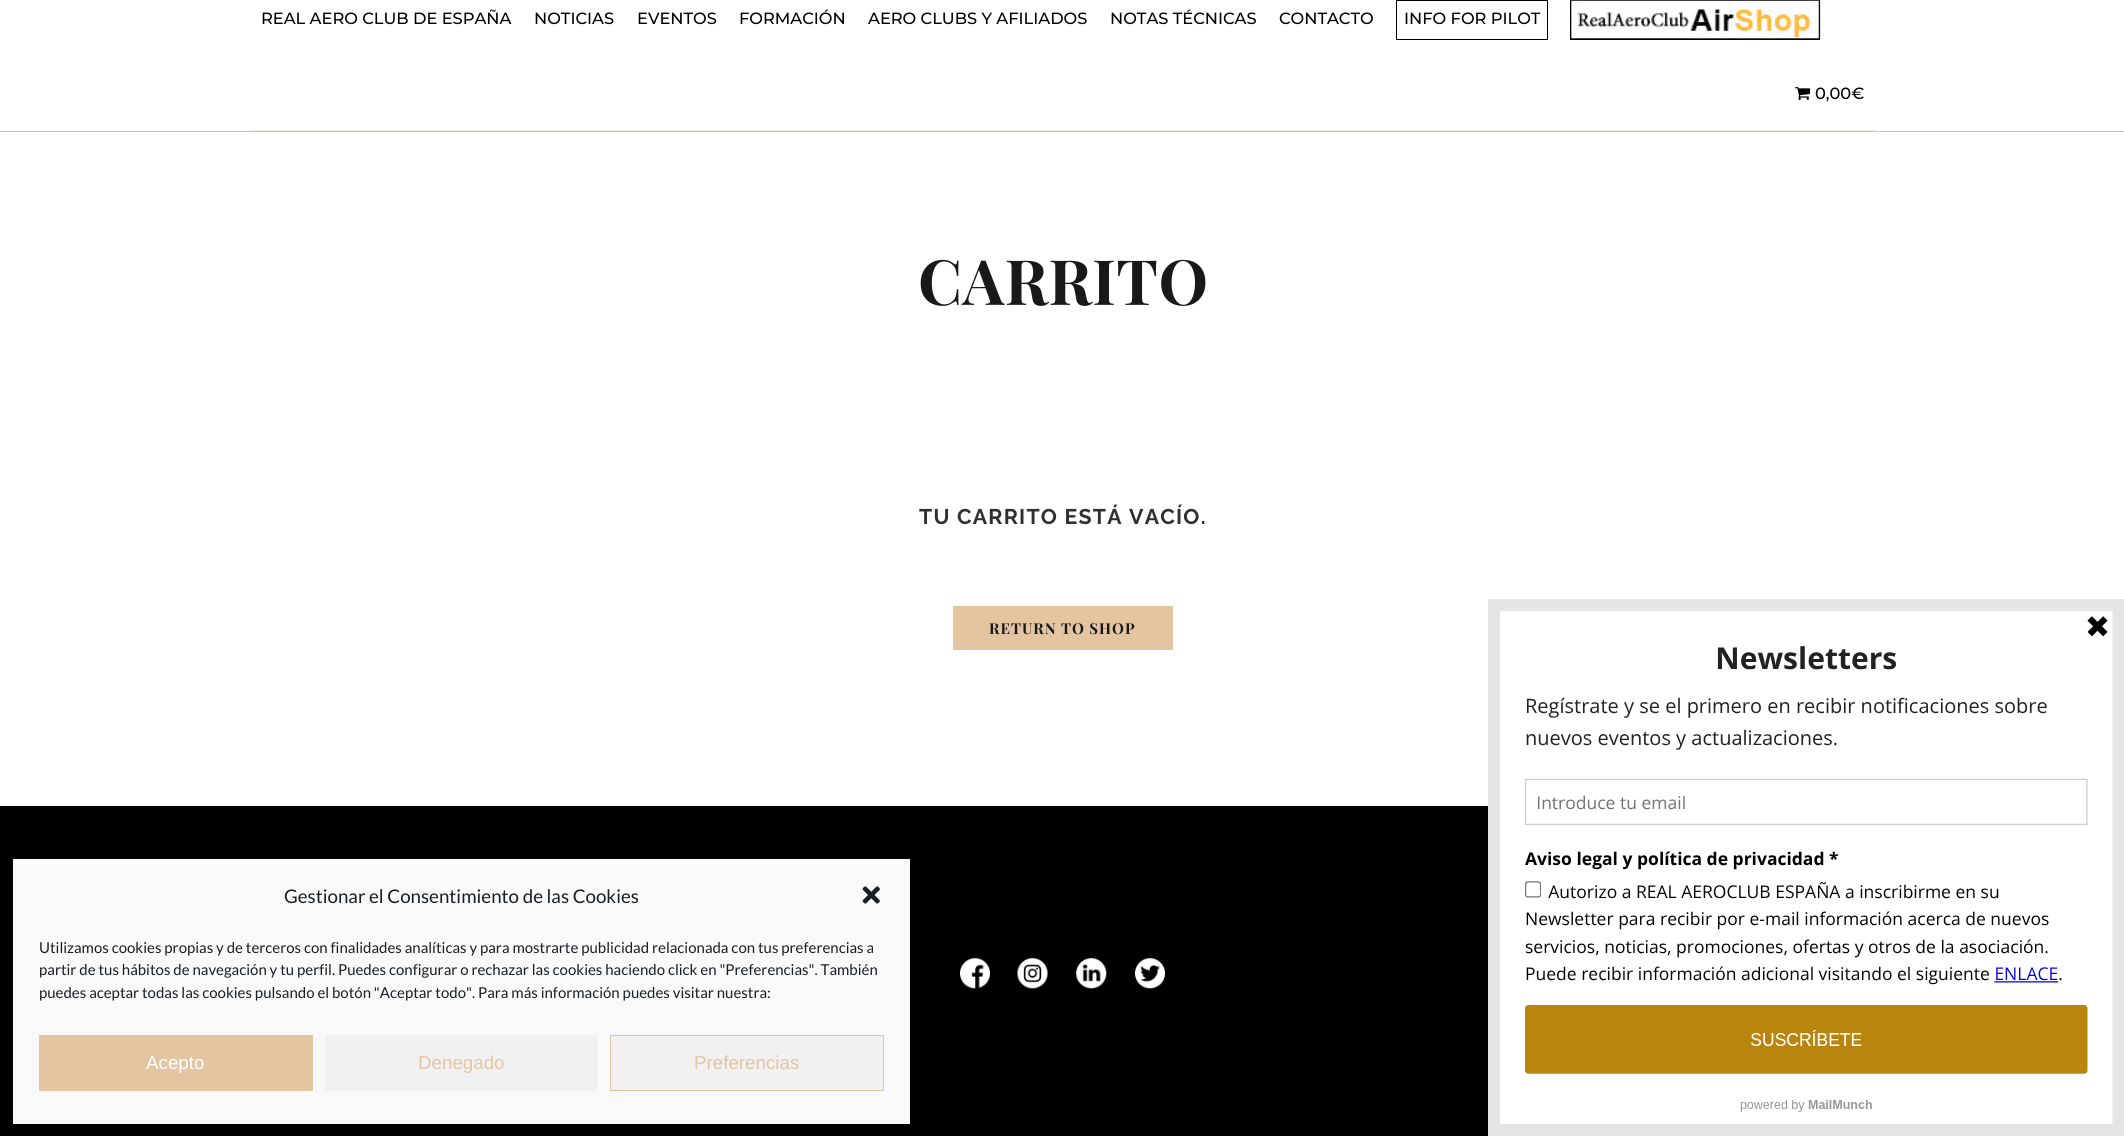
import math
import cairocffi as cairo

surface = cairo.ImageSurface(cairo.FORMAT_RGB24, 2124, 1136)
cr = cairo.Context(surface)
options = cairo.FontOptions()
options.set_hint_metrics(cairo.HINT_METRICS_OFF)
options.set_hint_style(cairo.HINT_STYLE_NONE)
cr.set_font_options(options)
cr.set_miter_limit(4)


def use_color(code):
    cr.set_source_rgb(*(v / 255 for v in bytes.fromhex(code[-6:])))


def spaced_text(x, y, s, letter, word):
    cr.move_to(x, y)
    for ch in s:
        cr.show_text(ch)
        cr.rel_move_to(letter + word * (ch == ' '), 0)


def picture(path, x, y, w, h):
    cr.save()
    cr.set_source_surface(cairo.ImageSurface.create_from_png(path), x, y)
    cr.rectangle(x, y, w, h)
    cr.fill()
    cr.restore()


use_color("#ffffff")
cr.paint()
use_color("#f7be68")
cr.rectangle(0, 131, 2124, 1)
cr.fill()
use_color("#eeeadc")
cr.rectangle(250, 130, 1625, 1)
cr.fill()
cr.select_font_face("Montserrat Medium")
cr.set_font_size(16.25)
use_color("#000000")
cr.move_to(261, 24)
cr.show_text("REAL AERO CLUB DE ESPAÑA")
cr.move_to(534, 24)
cr.show_text("NOTICIAS")
cr.move_to(637, 24)
cr.show_text("EVENTOS")
cr.move_to(739, 24)
cr.show_text("FORMACIÓN")
cr.move_to(868, 24)
cr.show_text("AERO CLUBS Y AFILIADOS")
cr.move_to(1110, 24)
cr.show_text("NOTAS TÉCNICAS")
cr.move_to(1279, 24)
cr.show_text("CONTACTO")
cr.rectangle(1396.5, 0.5, 151, 39)
cr.set_line_width(1)
cr.stroke()
cr.move_to(1404, 24)
cr.show_text("INFO FOR PILOT")
picture("img1.png", 1570, 0, 251, 40)
picture("img2.png", 1795, 87, 16, 13)
cr.move_to(1815, 99)
cr.show_text("0,00€")
cr.select_font_face("Playfair Display", cairo.FONT_SLANT_NORMAL, cairo.FONT_WEIGHT_BOLD)
cr.set_font_size(62.5)
use_color("#1a1918")
spaced_text(918, 305, "CARRITO", 0.5, 0)
cr.select_font_face("Raleway", cairo.FONT_SLANT_NORMAL, cairo.FONT_WEIGHT_BOLD)
cr.set_font_size(21.25)
use_color("#303030")
spaced_text(919, 524, "TU CARRITO ESTÁ VACÍO.", 1.25, 0)
use_color("#e3c5a2")
cr.rectangle(953, 606, 220, 44)
cr.fill()
cr.select_font_face("Playfair Display", cairo.FONT_SLANT_NORMAL, cairo.FONT_WEIGHT_BOLD)
cr.set_font_size(15)
use_color("#1a1918")
spaced_text(989, 634, "RETURN TO SHOP", 1, 0)
use_color("#000000")
cr.rectangle(0, 806, 1488, 330)
cr.fill()
picture("img3.png", 960, 958, 30, 31)
picture("img4.png", 1017, 958, 31, 31)
picture("img5.png", 1076, 958, 31, 31)
picture("img6.png", 1135, 958, 30, 31)
use_color("#f9f9f9")
cr.rectangle(13, 859, 897, 265)
cr.fill()
cr.select_font_face("Lato")
cr.set_font_size(18.75)
use_color("#191e23")
cr.move_to(284, 903)
cr.show_text("Gestionar el Consentimiento de las Cookies")
picture("img7.png", 862, 886, 18, 18)
cr.set_font_size(15)
cr.move_to(39, 953)
cr.show_text("Utilizamos cookies propias y de terceros con finalidades analíticas y para mostrarte publicidad relacionada con tus preferencias a")
cr.move_to(39, 975)
cr.show_text("partir de tus hábitos de navegación y tu perfil. Puedes configurar o rechazar las cookies haciendo click en \"Preferencias\". También")
cr.move_to(39, 998)
cr.show_text("puedes aceptar todas las cookies pulsando el botón \"Aceptar todo\". Para más información puedes visitar nuestra:")
use_color("#e3c5a2")
cr.rectangle(39, 1035, 274, 56)
cr.fill()
cr.select_font_face("Liberation Sans")
cr.set_font_size(18.75)
use_color("#ffffff")
cr.move_to(146, 1069)
cr.show_text("Acepto")
use_color("#f1f1f1")
cr.rectangle(325, 1035, 273, 56)
cr.fill()
use_color("#e3c5a2")
cr.move_to(418, 1069)
cr.show_text("Denegado")
use_color("#f1f1f1")
cr.rectangle(610.5, 1035.5, 273, 55)
cr.fill_preserve()
use_color("#e3c5a2")
cr.stroke()
cr.move_to(694, 1069)
cr.show_text("Preferencias")
picture("img8.png", 1488, 599, 636, 537)
surface.write_to_png("result.png")
